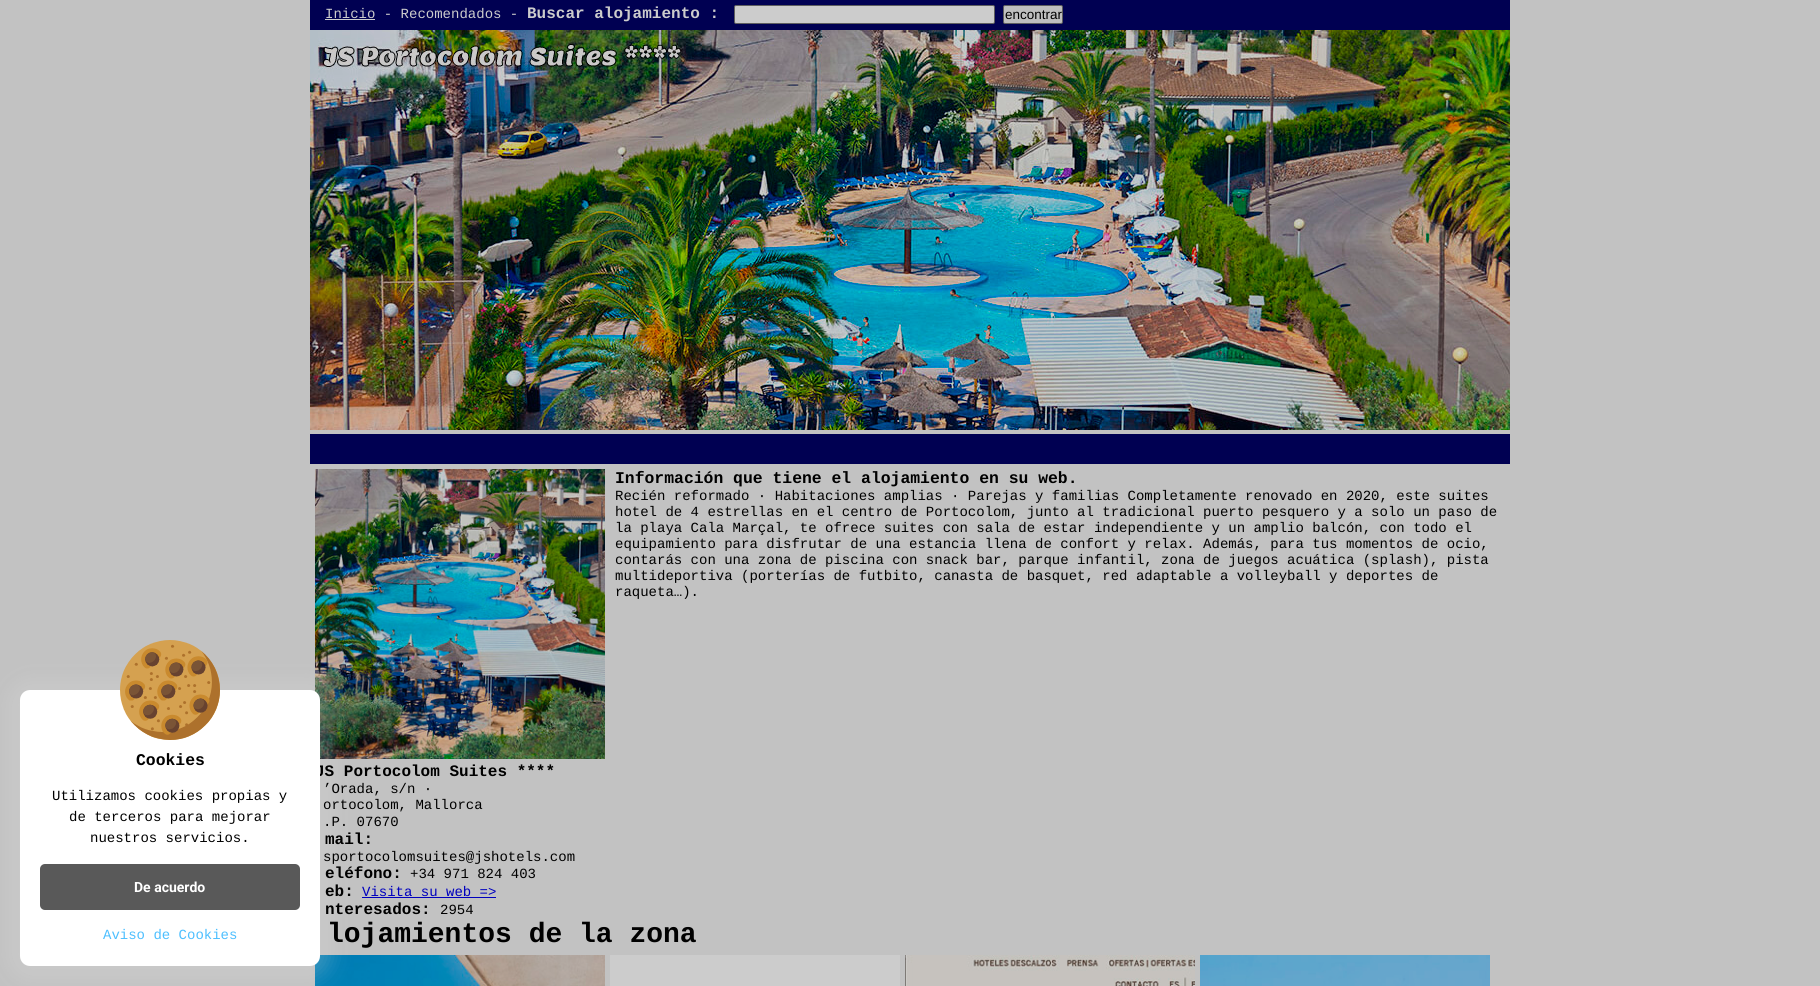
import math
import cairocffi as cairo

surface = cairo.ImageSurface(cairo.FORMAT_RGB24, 1820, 986)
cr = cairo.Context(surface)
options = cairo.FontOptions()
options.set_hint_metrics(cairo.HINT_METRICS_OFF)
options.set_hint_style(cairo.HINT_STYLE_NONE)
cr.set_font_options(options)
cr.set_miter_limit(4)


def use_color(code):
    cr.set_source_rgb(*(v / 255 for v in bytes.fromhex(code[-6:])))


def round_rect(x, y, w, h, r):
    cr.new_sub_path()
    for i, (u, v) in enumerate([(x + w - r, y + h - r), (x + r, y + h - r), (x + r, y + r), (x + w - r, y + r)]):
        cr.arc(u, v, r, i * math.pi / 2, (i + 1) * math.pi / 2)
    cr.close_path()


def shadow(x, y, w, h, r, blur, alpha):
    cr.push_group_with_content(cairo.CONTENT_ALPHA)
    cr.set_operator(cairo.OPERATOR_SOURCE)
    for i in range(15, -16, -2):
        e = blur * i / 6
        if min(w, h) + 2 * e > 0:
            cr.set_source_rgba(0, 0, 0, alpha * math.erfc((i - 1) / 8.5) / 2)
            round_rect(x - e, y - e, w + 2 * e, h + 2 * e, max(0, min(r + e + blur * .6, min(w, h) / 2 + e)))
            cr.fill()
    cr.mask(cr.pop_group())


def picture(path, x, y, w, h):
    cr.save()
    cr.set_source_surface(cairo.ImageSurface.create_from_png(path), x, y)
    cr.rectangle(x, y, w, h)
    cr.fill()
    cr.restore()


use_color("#c2c2c2")
cr.paint()
picture("img3.png", 315, 469, 290, 290)
picture("img4.png", 315, 955, 290, 31)
use_color("#dedede")
shadow(10, 682, 320, 296, 20, 10, 0.25)
cr.select_font_face("Liberation Mono", cairo.FONT_SLANT_NORMAL, cairo.FONT_WEIGHT_BOLD)
cr.set_font_size(16)
use_color("#000000")
cr.move_to(315, 776)
cr.show_text("JS Portocolom Suites ****")
use_color("#ffffff")
round_rect(20, 690, 300, 276, 10)
cr.fill()
picture("img1.png", 120, 640, 100, 100)
cr.set_font_size(16.4)
use_color("#000000")
cr.move_to(136, 765)
cr.show_text("Cookies")
cr.select_font_face("Liberation Mono")
cr.set_font_size(14)
cr.move_to(52, 800)
cr.show_text("Utilizamos cookies propias y")
cr.move_to(69, 821)
cr.show_text("de terceros para mejorar")
cr.move_to(90, 842)
cr.show_text("nuestros servicios.")
use_color("#595959")
round_rect(40, 864, 260, 46, 5)
cr.fill()
cr.select_font_face("Roboto", cairo.FONT_SLANT_NORMAL, cairo.FONT_WEIGHT_BOLD)
use_color("#ffffff")
cr.move_to(134, 892)
cr.show_text("De acuerdo")
cr.select_font_face("Liberation Mono")
use_color("#4dbfff")
cr.move_to(103, 939)
cr.show_text("Aviso de Cookies")
use_color("#000052")
cr.rectangle(310, 0, 1200, 30)
cr.fill()
use_color("#cccccc")
cr.move_to(325, 18)
cr.show_text("Inicio - Recomendados -")
cr.rectangle(325, 19, 50, 1)
cr.fill()
cr.select_font_face("Liberation Mono", cairo.FONT_SLANT_NORMAL, cairo.FONT_WEIGHT_BOLD)
cr.set_font_size(16)
cr.move_to(527, 18)
cr.show_text("Buscar alojamiento :")
round_rect(734.5, 5.5, 260, 18, 1.5)
cr.fill_preserve()
use_color("#5e5e5e")
cr.set_line_width(1)
cr.stroke()
use_color("#bfbfbf")
round_rect(1003.5, 5.5, 59, 18, 1.5)
cr.fill_preserve()
use_color("#5e5e5e")
cr.stroke()
cr.select_font_face("Liberation Sans")
cr.set_font_size(13.5)
use_color("#000000")
cr.move_to(1005, 19)
cr.show_text("encontrar")
picture("img2.png", 310, 30, 1200, 400)
use_color("#000052")
cr.rectangle(310, 434, 1200, 30)
cr.fill()
cr.select_font_face("Liberation Mono", cairo.FONT_SLANT_NORMAL, cairo.FONT_WEIGHT_BOLD)
cr.set_font_size(16.4)
use_color("#000000")
cr.move_to(615, 483)
cr.show_text("Información que tiene el alojamiento en su web.")
cr.select_font_face("Liberation Mono")
cr.set_font_size(14)
cr.move_to(615, 500)
cr.show_text("Recién reformado · Habitaciones amplias · Parejas y familias Completamente renovado en 2020, este suites")
cr.move_to(615, 516)
cr.show_text("hotel de 4 estrellas en el centro de Portocolom, junto al tradicional puerto pesquero y a solo un paso de")
cr.move_to(615, 532)
cr.show_text("la playa Cala Marçal, te ofrece suites con sala de estar independiente y un amplio balcón, con todo el")
cr.move_to(615, 548)
cr.show_text("equipamiento para disfrutar de una estancia llena de confort y relax. Además, para tus momentos de ocio,")
cr.move_to(615, 564)
cr.show_text("contarás con una zona de piscina con snack bar, parque infantil, zona de juegos acuática (splash), pista")
cr.move_to(615, 580)
cr.show_text("multideportiva (porterías de futbito, canasta de basquet, red adaptable a volleyball y deportes de")
cr.move_to(615, 596)
cr.show_text("raqueta…).")
cr.move_to(323, 793)
cr.show_text("’Orada, s/n ·")
cr.move_to(323, 809)
cr.show_text("ortocolom, Mallorca")
cr.move_to(323, 826)
cr.show_text(".P. 07670")
cr.select_font_face("Liberation Mono", cairo.FONT_SLANT_NORMAL, cairo.FONT_WEIGHT_BOLD)
cr.set_font_size(16)
cr.move_to(325, 844)
cr.show_text("mail:")
cr.select_font_face("Liberation Mono")
cr.set_font_size(14)
cr.move_to(323, 861)
cr.show_text("sportocolomsuites@jshotels.com")
cr.select_font_face("Liberation Mono", cairo.FONT_SLANT_NORMAL, cairo.FONT_WEIGHT_BOLD)
cr.set_font_size(16)
cr.move_to(325, 878)
cr.show_text("eléfono:")
cr.select_font_face("Liberation Mono")
cr.set_font_size(14)
cr.move_to(410, 878)
cr.show_text("+34 971 824 403")
cr.select_font_face("Liberation Mono", cairo.FONT_SLANT_NORMAL, cairo.FONT_WEIGHT_BOLD)
cr.set_font_size(16)
cr.move_to(325, 896)
cr.show_text("eb:")
cr.select_font_face("Liberation Mono")
cr.set_font_size(14)
use_color("#0000be")
cr.move_to(362, 896)
cr.show_text("Visita su web =>")
cr.rectangle(362, 897, 134, 1)
cr.fill()
cr.select_font_face("Liberation Mono", cairo.FONT_SLANT_NORMAL, cairo.FONT_WEIGHT_BOLD)
cr.set_font_size(16)
use_color("#000000")
cr.move_to(325, 914)
cr.show_text("nteresados:")
cr.select_font_face("Liberation Mono")
cr.set_font_size(14)
cr.move_to(440, 914)
cr.show_text("2954")
cr.select_font_face("Liberation Mono", cairo.FONT_SLANT_NORMAL, cairo.FONT_WEIGHT_BOLD)
cr.set_font_size(28)
cr.move_to(327, 942)
cr.show_text("lojamientos de la zona")
use_color("#cccccc")
cr.rectangle(610, 955, 290, 31)
cr.fill()
picture("img5.png", 905, 955, 290, 31)
picture("img6.png", 1200, 955, 290, 31)
surface.write_to_png("result.png")
